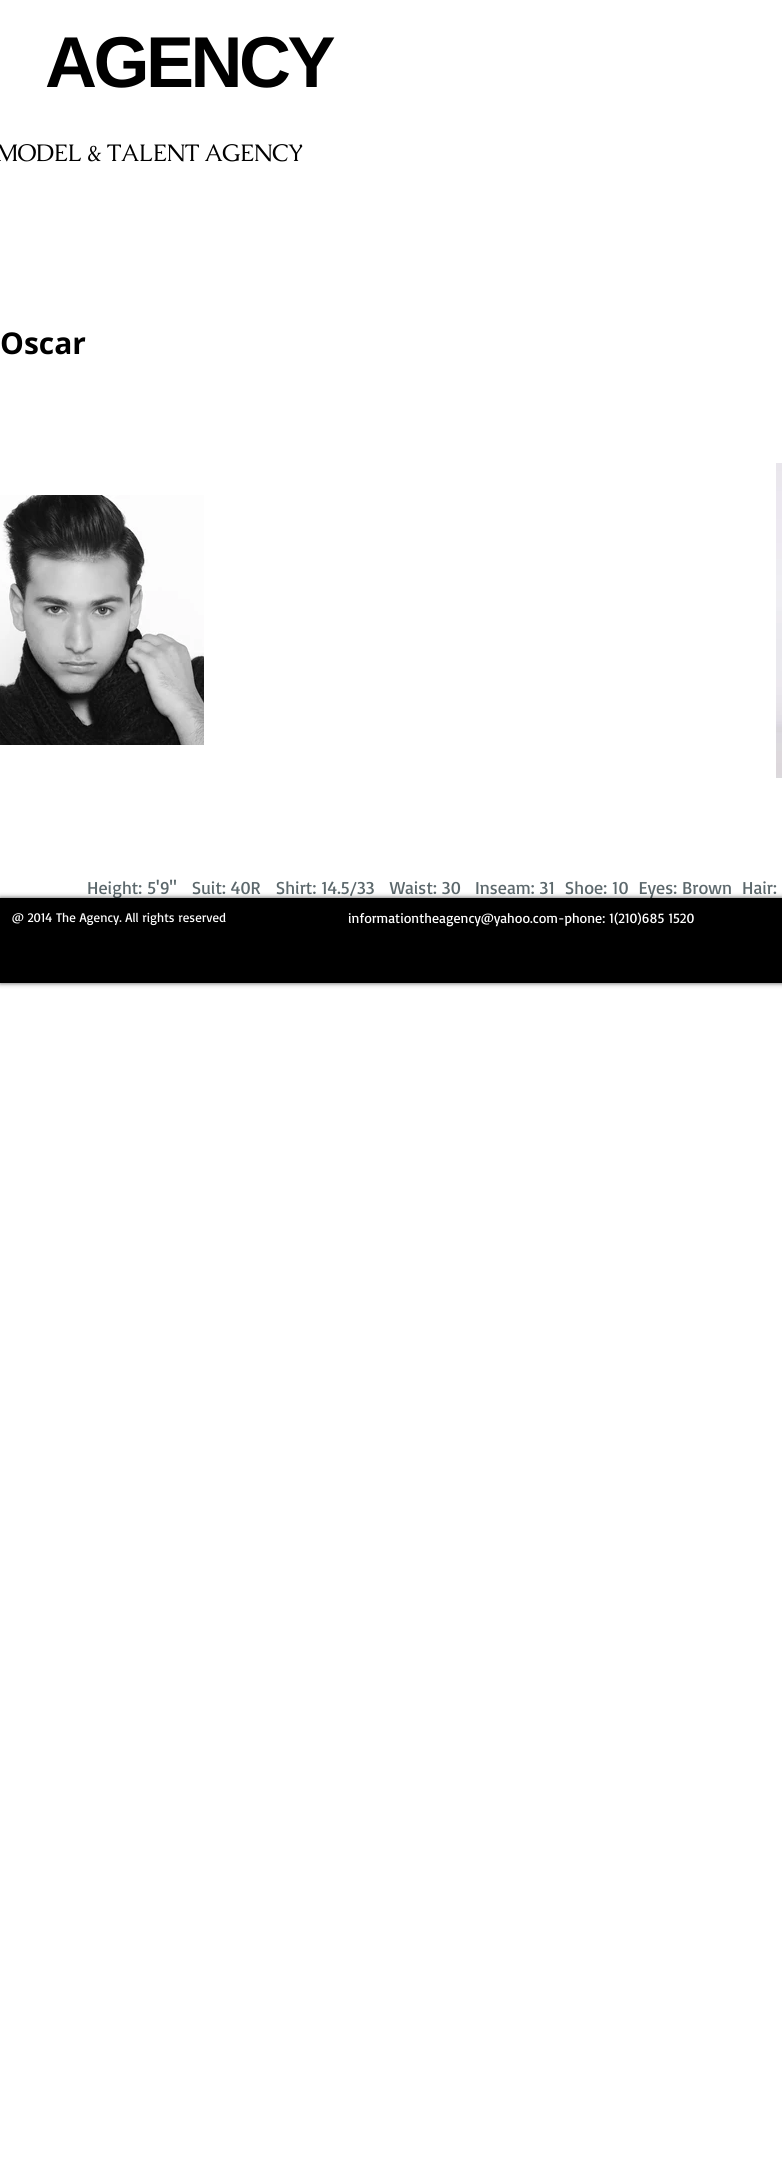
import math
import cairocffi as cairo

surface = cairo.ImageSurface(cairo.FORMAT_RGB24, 782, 2167)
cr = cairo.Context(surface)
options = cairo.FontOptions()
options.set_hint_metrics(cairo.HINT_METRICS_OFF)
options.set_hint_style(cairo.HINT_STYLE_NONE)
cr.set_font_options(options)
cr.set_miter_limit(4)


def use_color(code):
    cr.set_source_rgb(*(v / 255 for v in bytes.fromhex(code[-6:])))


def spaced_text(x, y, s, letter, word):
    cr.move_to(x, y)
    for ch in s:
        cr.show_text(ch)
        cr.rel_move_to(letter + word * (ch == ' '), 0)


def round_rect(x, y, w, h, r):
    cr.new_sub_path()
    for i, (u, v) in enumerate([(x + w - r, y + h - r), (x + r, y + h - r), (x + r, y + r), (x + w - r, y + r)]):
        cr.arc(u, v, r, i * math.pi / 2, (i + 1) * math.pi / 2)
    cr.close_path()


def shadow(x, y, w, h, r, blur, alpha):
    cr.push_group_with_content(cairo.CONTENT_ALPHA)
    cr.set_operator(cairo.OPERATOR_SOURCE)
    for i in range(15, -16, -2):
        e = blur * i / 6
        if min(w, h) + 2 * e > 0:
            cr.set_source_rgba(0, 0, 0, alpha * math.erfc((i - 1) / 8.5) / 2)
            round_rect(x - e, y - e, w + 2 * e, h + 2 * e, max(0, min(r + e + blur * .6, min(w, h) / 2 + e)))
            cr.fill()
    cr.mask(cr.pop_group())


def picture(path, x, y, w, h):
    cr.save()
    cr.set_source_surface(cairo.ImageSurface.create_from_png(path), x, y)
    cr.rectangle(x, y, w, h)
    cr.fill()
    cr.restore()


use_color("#ffffff")
cr.paint()
cr.select_font_face("Liberation Sans", cairo.FONT_SLANT_NORMAL, cairo.FONT_WEIGHT_BOLD)
cr.set_font_size(72)
use_color("#000000")
spaced_text(45, 87, "AGENCY", -3.5, 4)
cr.select_font_face("Caudex")
cr.set_font_size(24)
spaced_text(-4, 161, "MODEL & TALENT AGENCY", -0.8, 0)
cr.select_font_face("Open Sans", cairo.FONT_SLANT_NORMAL, cairo.FONT_WEIGHT_BOLD)
cr.set_font_size(30)
cr.move_to(0, 354)
cr.show_text("Oscar")
picture("img1.png", 0, 495, 204, 250)
picture("img2.png", 776, 463, 6, 315)
cr.select_font_face("Basic")
cr.set_font_size(18)
use_color("#5c686c")
cr.move_to(87, 894)
cr.show_text("Height: 5'9\"   Suit: 40R   Shirt: 14.5/33   Waist: 30")
cr.move_to(475, 894)
cr.show_text("Inseam: 31  Shoe: 10  Eyes: Brown  Hair:")
use_color("#000000")
shadow(0, 898, 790, 85, 0, 2.5, 0.7)
use_color("#000000")
cr.rectangle(0, 898, 782, 85)
cr.fill()
cr.set_font_size(13)
use_color("#ffffff")
cr.move_to(12, 922)
cr.show_text("@ 2014 The Agency. All rights reserved")
cr.set_font_size(14)
cr.move_to(348, 923)
cr.show_text("informationtheagency@yahoo.com-phone: 1(210)685 1520")
surface.write_to_png("result.png")
